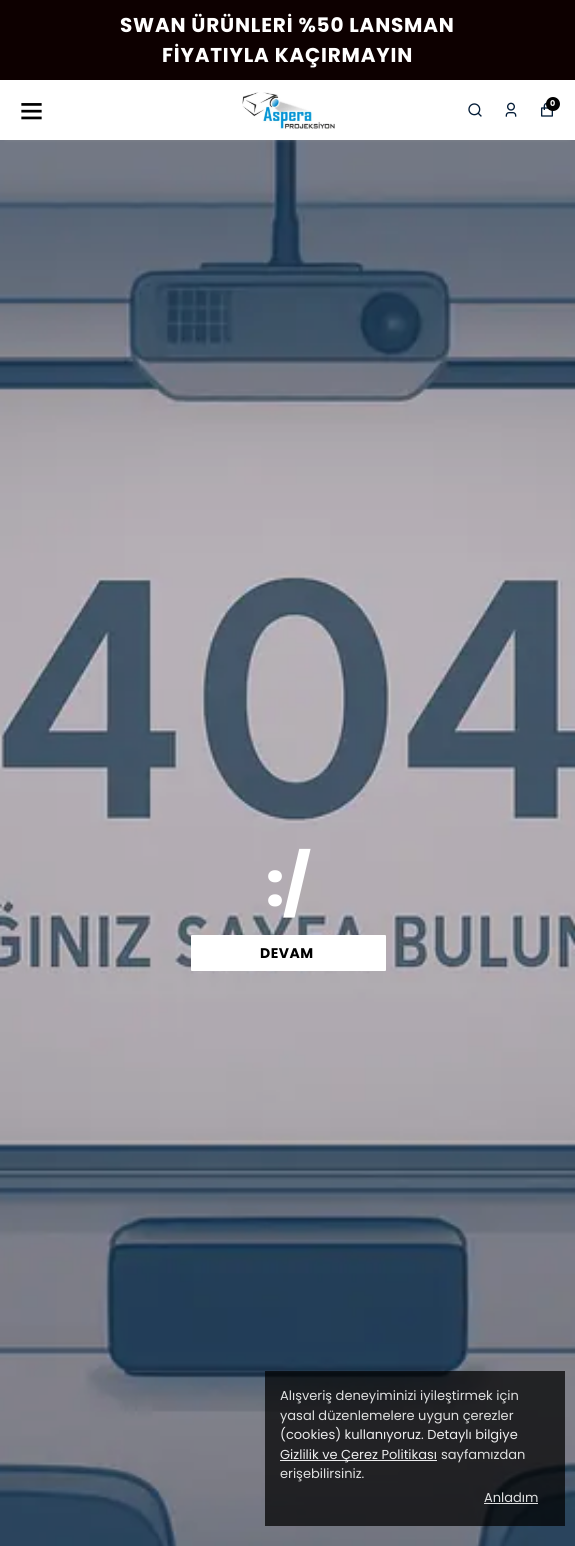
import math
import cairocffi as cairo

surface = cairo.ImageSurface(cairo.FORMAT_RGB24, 575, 1546)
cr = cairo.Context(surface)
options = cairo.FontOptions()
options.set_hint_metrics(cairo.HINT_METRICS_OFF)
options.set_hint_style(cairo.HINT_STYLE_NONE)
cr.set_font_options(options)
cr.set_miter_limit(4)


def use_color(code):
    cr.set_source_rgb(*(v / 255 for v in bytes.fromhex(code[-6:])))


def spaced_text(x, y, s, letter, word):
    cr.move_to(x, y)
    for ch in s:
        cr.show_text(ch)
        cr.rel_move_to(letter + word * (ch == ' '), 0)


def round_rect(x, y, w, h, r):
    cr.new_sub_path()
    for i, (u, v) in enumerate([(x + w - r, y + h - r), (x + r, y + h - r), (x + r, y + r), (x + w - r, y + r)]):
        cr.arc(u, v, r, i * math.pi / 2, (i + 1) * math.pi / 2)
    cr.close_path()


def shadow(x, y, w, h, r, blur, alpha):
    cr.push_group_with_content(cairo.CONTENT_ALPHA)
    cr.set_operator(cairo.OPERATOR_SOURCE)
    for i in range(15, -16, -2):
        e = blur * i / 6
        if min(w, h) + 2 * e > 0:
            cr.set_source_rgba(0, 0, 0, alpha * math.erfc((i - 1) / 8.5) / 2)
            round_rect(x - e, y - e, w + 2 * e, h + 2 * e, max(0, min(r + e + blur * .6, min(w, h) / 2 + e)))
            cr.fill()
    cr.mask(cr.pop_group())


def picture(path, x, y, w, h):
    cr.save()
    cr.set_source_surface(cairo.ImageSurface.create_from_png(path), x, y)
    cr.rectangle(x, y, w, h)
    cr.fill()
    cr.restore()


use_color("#ffffff")
cr.paint()
use_color("#0d0000")
cr.rectangle(0, 0, 575, 80)
cr.fill()
cr.select_font_face("Poppins", cairo.FONT_SLANT_NORMAL, cairo.FONT_WEIGHT_BOLD)
cr.set_font_size(20)
use_color("#ffffff")
spaced_text(120, 32, "SWAN ÜRÜNLERİ %50 LANSMAN", 0.8, 0)
spaced_text(162, 62, "FİYATIYLA KAÇIRMAYIN", 0.8, 0)
picture("img6.png", 0, 140, 575, 1406)
cr.save()
cr.rectangle(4, 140, 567, 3)
cr.clip()
use_color("#989898")
shadow(7, 92, 561, 46, 0, 2.5, 1)
cr.restore()
picture("img1.png", 21, 103, 21, 17)
picture("img2.png", 242, 92, 93, 38)
picture("img3.png", 468, 103, 14, 14)
picture("img4.png", 505, 102, 12, 15)
picture("img5.png", 541, 102, 12, 15)
use_color("#000000")
cr.arc(553, 104, 7, 0, 2 * math.pi)
cr.fill()
cr.set_font_size(8)
use_color("#ffffff")
cr.move_to(550, 106)
cr.show_text("0")
cr.set_source_rgba(0, 0, 0, 0.73)
cr.rectangle(265, 1371, 300, 155)
cr.fill()
cr.select_font_face("Poppins")
cr.set_font_size(13)
use_color("#dfe0e0")
cr.move_to(280, 1400)
cr.show_text("Alışveriş deneyiminizi iyileştirmek için")
cr.move_to(280, 1420)
cr.show_text("yasal düzenlemelere uygun çerezler")
use_color("#ededee")
cr.move_to(280, 1439)
cr.show_text("(cookies) kullanıyoruz. Detaylı bilgiye")
cr.rectangle(280, 1460, 157, 1)
cr.fill()
cr.move_to(280, 1459)
cr.show_text("Gizlilik ve Çerez Politikası")
use_color("#dfe0e0")
cr.move_to(441, 1459)
cr.show_text("sayfamızdan")
cr.move_to(280, 1478)
cr.show_text("erişebilirsiniz.")
cr.move_to(484, 1502)
cr.show_text("Anladım")
cr.set_source_rgba(1, 1, 1, 0.86)
cr.rectangle(484, 1503, 54, 1)
cr.fill()
cr.select_font_face("Poppins ExtraBold")
cr.set_font_size(60)
use_color("#ffffff")
cr.move_to(266, 906)
cr.show_text(":/")
round_rect(191, 935, 195, 36, 1)
cr.fill()
cr.select_font_face("Poppins", cairo.FONT_SLANT_NORMAL, cairo.FONT_WEIGHT_BOLD)
cr.set_font_size(14)
use_color("#000000")
spaced_text(260, 958, "DEVAM", 0.5, 0)
surface.write_to_png("result.png")
